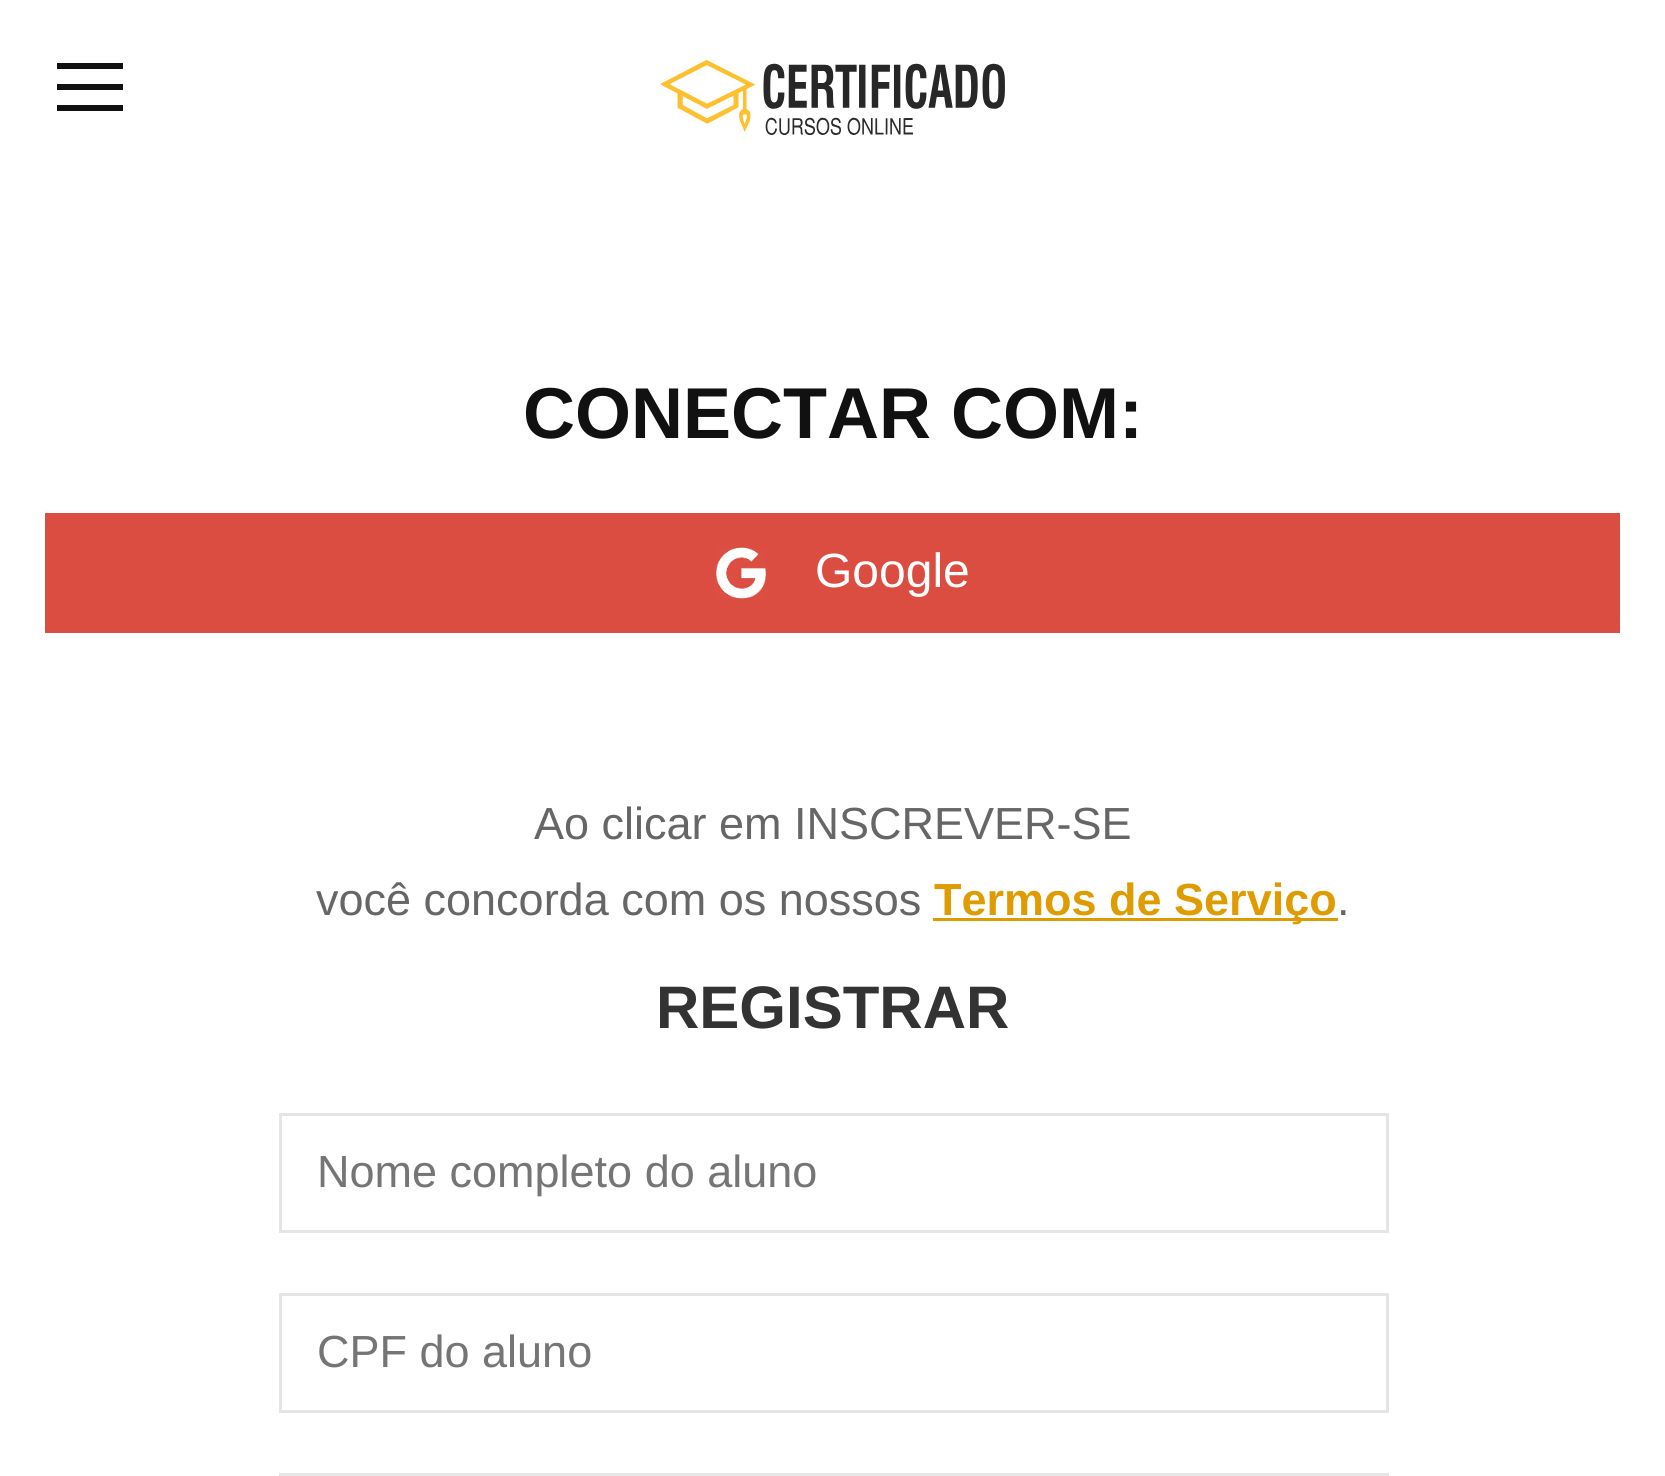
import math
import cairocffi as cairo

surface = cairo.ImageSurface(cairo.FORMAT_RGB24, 1665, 1476)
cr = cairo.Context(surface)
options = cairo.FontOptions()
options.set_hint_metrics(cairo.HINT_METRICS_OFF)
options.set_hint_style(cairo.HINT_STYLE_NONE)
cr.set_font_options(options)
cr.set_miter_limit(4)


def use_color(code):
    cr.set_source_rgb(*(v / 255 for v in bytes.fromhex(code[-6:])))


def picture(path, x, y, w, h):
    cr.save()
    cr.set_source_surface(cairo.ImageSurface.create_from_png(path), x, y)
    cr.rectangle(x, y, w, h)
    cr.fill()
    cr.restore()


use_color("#ffffff")
cr.paint()
use_color("#111111")
cr.rectangle(57, 63, 66, 6)
cr.fill()
cr.rectangle(57, 84, 66, 6)
cr.fill()
cr.rectangle(57, 105, 66, 6)
cr.fill()
picture("img1.png", 660, 60, 345, 75)
cr.select_font_face("Liberation Sans", cairo.FONT_SLANT_NORMAL, cairo.FONT_WEIGHT_BOLD)
cr.set_font_size(72)
cr.move_to(523, 438)
cr.show_text("CONECTAR COM:")
use_color("#dc4d41")
cr.rectangle(45, 513, 1575, 120)
cr.fill()
picture("img2.png", 716, 547, 50, 52)
cr.select_font_face("Liberation Sans")
cr.set_font_size(48)
use_color("#ffffff")
cr.move_to(815, 587)
cr.show_text("Google")
cr.set_font_size(45)
use_color("#666666")
cr.move_to(534, 839)
cr.show_text("Ao clicar em INSCREVER-SE")
cr.move_to(316, 915)
cr.show_text("você concorda com os nossos")
use_color("#de9c02")
cr.rectangle(933, 918, 405, 3)
cr.fill()
cr.select_font_face("Liberation Sans", cairo.FONT_SLANT_NORMAL, cairo.FONT_WEIGHT_BOLD)
cr.move_to(934, 915)
cr.show_text("Termos de Serviço")
cr.select_font_face("Liberation Sans")
use_color("#666666")
cr.move_to(1337, 915)
cr.show_text(".")
cr.select_font_face("Liberation Sans", cairo.FONT_SLANT_NORMAL, cairo.FONT_WEIGHT_BOLD)
cr.set_font_size(60)
use_color("#333333")
cr.move_to(656, 1028)
cr.show_text("REGISTRAR")
cr.rectangle(280.5, 1114.5, 1107, 117)
use_color("#e5e5e5")
cr.set_line_width(3)
cr.stroke()
cr.select_font_face("Liberation Sans")
cr.set_font_size(45)
use_color("#757575")
cr.move_to(317, 1187)
cr.show_text("Nome completo do aluno")
cr.rectangle(280.5, 1294.5, 1107, 117)
use_color("#e5e5e5")
cr.stroke()
use_color("#757575")
cr.move_to(317, 1367)
cr.show_text("CPF do aluno")
cr.rectangle(280.5, 1474.5, 1107, 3)
use_color("#e5e5e5")
cr.stroke()
surface.write_to_png("result.png")
